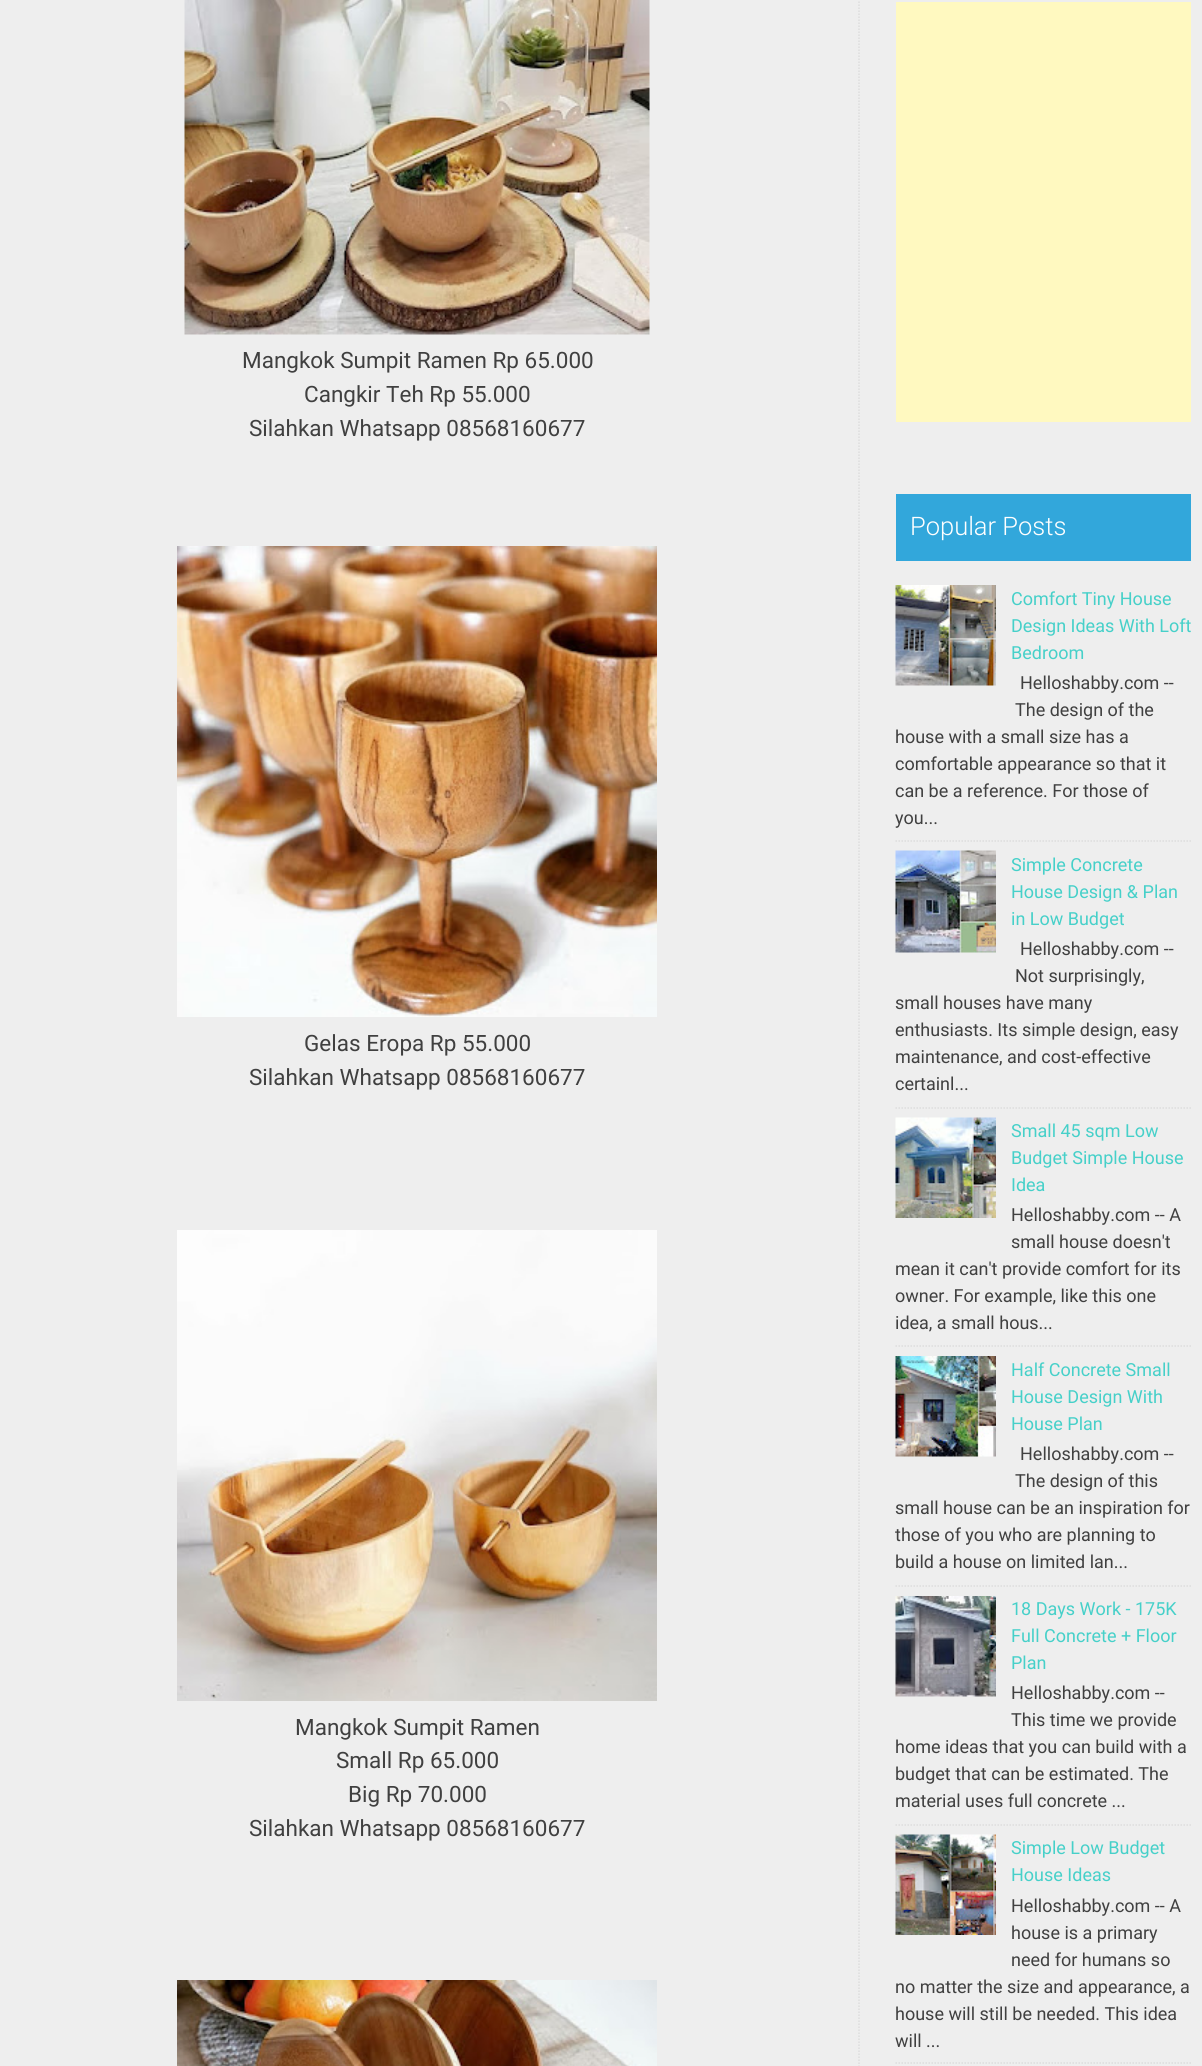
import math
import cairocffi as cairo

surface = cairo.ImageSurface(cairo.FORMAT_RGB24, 1202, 2066)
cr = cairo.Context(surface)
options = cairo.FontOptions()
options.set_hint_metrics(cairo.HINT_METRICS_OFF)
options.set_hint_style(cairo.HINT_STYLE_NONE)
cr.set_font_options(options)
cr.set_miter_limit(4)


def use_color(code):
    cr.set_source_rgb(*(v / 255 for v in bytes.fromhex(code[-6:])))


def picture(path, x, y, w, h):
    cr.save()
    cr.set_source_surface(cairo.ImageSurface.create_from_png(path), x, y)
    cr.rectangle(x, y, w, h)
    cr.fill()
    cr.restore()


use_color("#eeeeee")
cr.paint()
cr.new_path()
cr.move_to(859, -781.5)
cr.line_to(859, 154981.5)
use_color("#dddddd")
cr.set_line_width(1.5)
cr.set_dash([1.5, 1.5])
cr.stroke()
picture("img1.png", 184, 0, 466, 335)
cr.select_font_face("Roboto")
cr.set_font_size(22.5)
use_color("#404040")
cr.move_to(242, 368)
cr.show_text("Mangkok Sumpit Ramen Rp 65.000")
cr.move_to(304, 402)
cr.show_text("Cangkir Teh Rp 55.000")
cr.move_to(249, 436)
cr.show_text("Silahkan Whatsapp 08568160677")
picture("img2.png", 177, 546, 480, 471)
cr.move_to(304, 1051)
cr.show_text("Gelas Eropa Rp 55.000")
cr.move_to(249, 1085)
cr.show_text("Silahkan Whatsapp 08568160677")
picture("img3.png", 177, 1230, 480, 471)
cr.move_to(295, 1735)
cr.show_text("Mangkok Sumpit Ramen")
cr.move_to(336, 1768)
cr.show_text("Small Rp 65.000")
cr.move_to(348, 1802)
cr.show_text("Big Rp 70.000")
cr.move_to(249, 1836)
cr.show_text("Silahkan Whatsapp 08568160677")
picture("img4.png", 177, 1980, 480, 86)
use_color("#fff9c0")
cr.rectangle(896, 2, 295, 420)
cr.fill()
use_color("#32a7db")
cr.rectangle(896, 494, 295, 67)
cr.fill()
cr.select_font_face("Roboto Light")
cr.set_font_size(25.5)
use_color("#ffffff")
cr.move_to(910, 535)
cr.show_text("Popular Posts")
cr.new_path()
cr.move_to(895.5, 841)
cr.line_to(1191, 841)
use_color("#dddddd")
cr.stroke()
picture("img5.png", 895, 585, 101, 101)
cr.select_font_face("Roboto")
cr.set_font_size(18)
use_color("#46d0c9")
cr.move_to(1011, 605)
cr.show_text("Comfort Tiny House")
cr.move_to(1011, 632)
cr.show_text("Design Ideas With Loft")
cr.move_to(1011, 659)
cr.show_text("Bedroom")
use_color("#404040")
cr.move_to(1020, 689)
cr.show_text("Helloshabby.com --")
cr.move_to(1015, 716)
cr.show_text("The design of the")
cr.move_to(895, 743)
cr.show_text("house with a small size has a")
cr.move_to(895, 770)
cr.show_text("comfortable appearance so that it")
cr.move_to(895, 797)
cr.show_text("can be a reference. For those of")
cr.move_to(895, 824)
cr.show_text("you...")
cr.new_path()
cr.move_to(895.5, 1108)
cr.line_to(1191, 1108)
use_color("#dddddd")
cr.stroke()
picture("img6.png", 895, 850, 101, 103)
use_color("#46d0c9")
cr.move_to(1011, 871)
cr.show_text("Simple Concrete")
cr.move_to(1011, 898)
cr.show_text("House Design & Plan")
cr.move_to(1011, 925)
cr.show_text("in Low Budget")
use_color("#404040")
cr.move_to(1020, 955)
cr.show_text("Helloshabby.com --")
cr.move_to(1015, 982)
cr.show_text("Not surprisingly,")
cr.move_to(895, 1009)
cr.show_text("small houses have many")
cr.move_to(895, 1036)
cr.show_text("enthusiasts. Its simple design, easy")
cr.move_to(895, 1063)
cr.show_text("maintenance, and cost-effective")
cr.move_to(895, 1090)
cr.show_text("certainl...")
cr.new_path()
cr.move_to(895.5, 1346)
cr.line_to(1191, 1346)
use_color("#dddddd")
cr.stroke()
picture("img7.png", 895, 1117, 101, 101)
use_color("#46d0c9")
cr.move_to(1011, 1137)
cr.show_text("Small 45 sqm Low")
cr.move_to(1011, 1164)
cr.show_text("Budget Simple House")
cr.move_to(1011, 1191)
cr.show_text("Idea")
use_color("#404040")
cr.move_to(1011, 1221)
cr.show_text("Helloshabby.com -- A")
cr.move_to(1011, 1248)
cr.show_text("small house doesn't")
cr.move_to(895, 1275)
cr.show_text("mean it can't provide comfort for its")
cr.move_to(895, 1302)
cr.show_text("owner. For example, like this one")
cr.move_to(895, 1329)
cr.show_text("idea, a small hous...")
cr.new_path()
cr.move_to(895.5, 1586)
cr.line_to(1191, 1586)
use_color("#dddddd")
cr.stroke()
picture("img8.png", 895, 1356, 101, 101)
use_color("#46d0c9")
cr.move_to(1011, 1376)
cr.show_text("Half Concrete Small")
cr.move_to(1011, 1403)
cr.show_text("House Design With")
cr.move_to(1011, 1430)
cr.show_text("House Plan")
use_color("#404040")
cr.move_to(1020, 1460)
cr.show_text("Helloshabby.com --")
cr.move_to(1015, 1487)
cr.show_text("The design of this")
cr.move_to(895, 1514)
cr.show_text("small house can be an inspiration for")
cr.move_to(895, 1541)
cr.show_text("those of you who are planning to")
cr.move_to(895, 1568)
cr.show_text("build a house on limited lan...")
cr.new_path()
cr.move_to(895.5, 1825)
cr.line_to(1191, 1825)
use_color("#dddddd")
cr.stroke()
picture("img9.png", 895, 1596, 101, 101)
use_color("#46d0c9")
cr.move_to(1011, 1615)
cr.show_text("18 Days Work - 175K")
cr.move_to(1011, 1642)
cr.show_text("Full Concrete + Floor")
cr.move_to(1011, 1669)
cr.show_text("Plan")
use_color("#404040")
cr.move_to(1011, 1699)
cr.show_text("Helloshabby.com --")
cr.move_to(1011, 1726)
cr.show_text("This time we provide")
cr.move_to(895, 1753)
cr.show_text("home ideas that you can build with a")
cr.move_to(895, 1780)
cr.show_text("budget that can be estimated. The")
cr.move_to(895, 1807)
cr.show_text("material uses full concrete ...")
cr.new_path()
cr.move_to(895.5, 2063)
cr.line_to(1191, 2063)
use_color("#dddddd")
cr.stroke()
picture("img10.png", 895, 1834, 101, 101)
use_color("#46d0c9")
cr.move_to(1011, 1854)
cr.show_text("Simple Low Budget")
cr.move_to(1011, 1881)
cr.show_text("House Ideas")
use_color("#404040")
cr.move_to(1011, 1912)
cr.show_text("Helloshabby.com -- A")
cr.move_to(1011, 1939)
cr.show_text("house is a primary")
cr.move_to(1011, 1966)
cr.show_text("need for humans so")
cr.move_to(895, 1993)
cr.show_text("no matter the size and appearance, a")
cr.move_to(895, 2020)
cr.show_text("house will still be needed. This idea")
cr.move_to(895, 2047)
cr.show_text("will ...")
surface.write_to_png("result.png")
